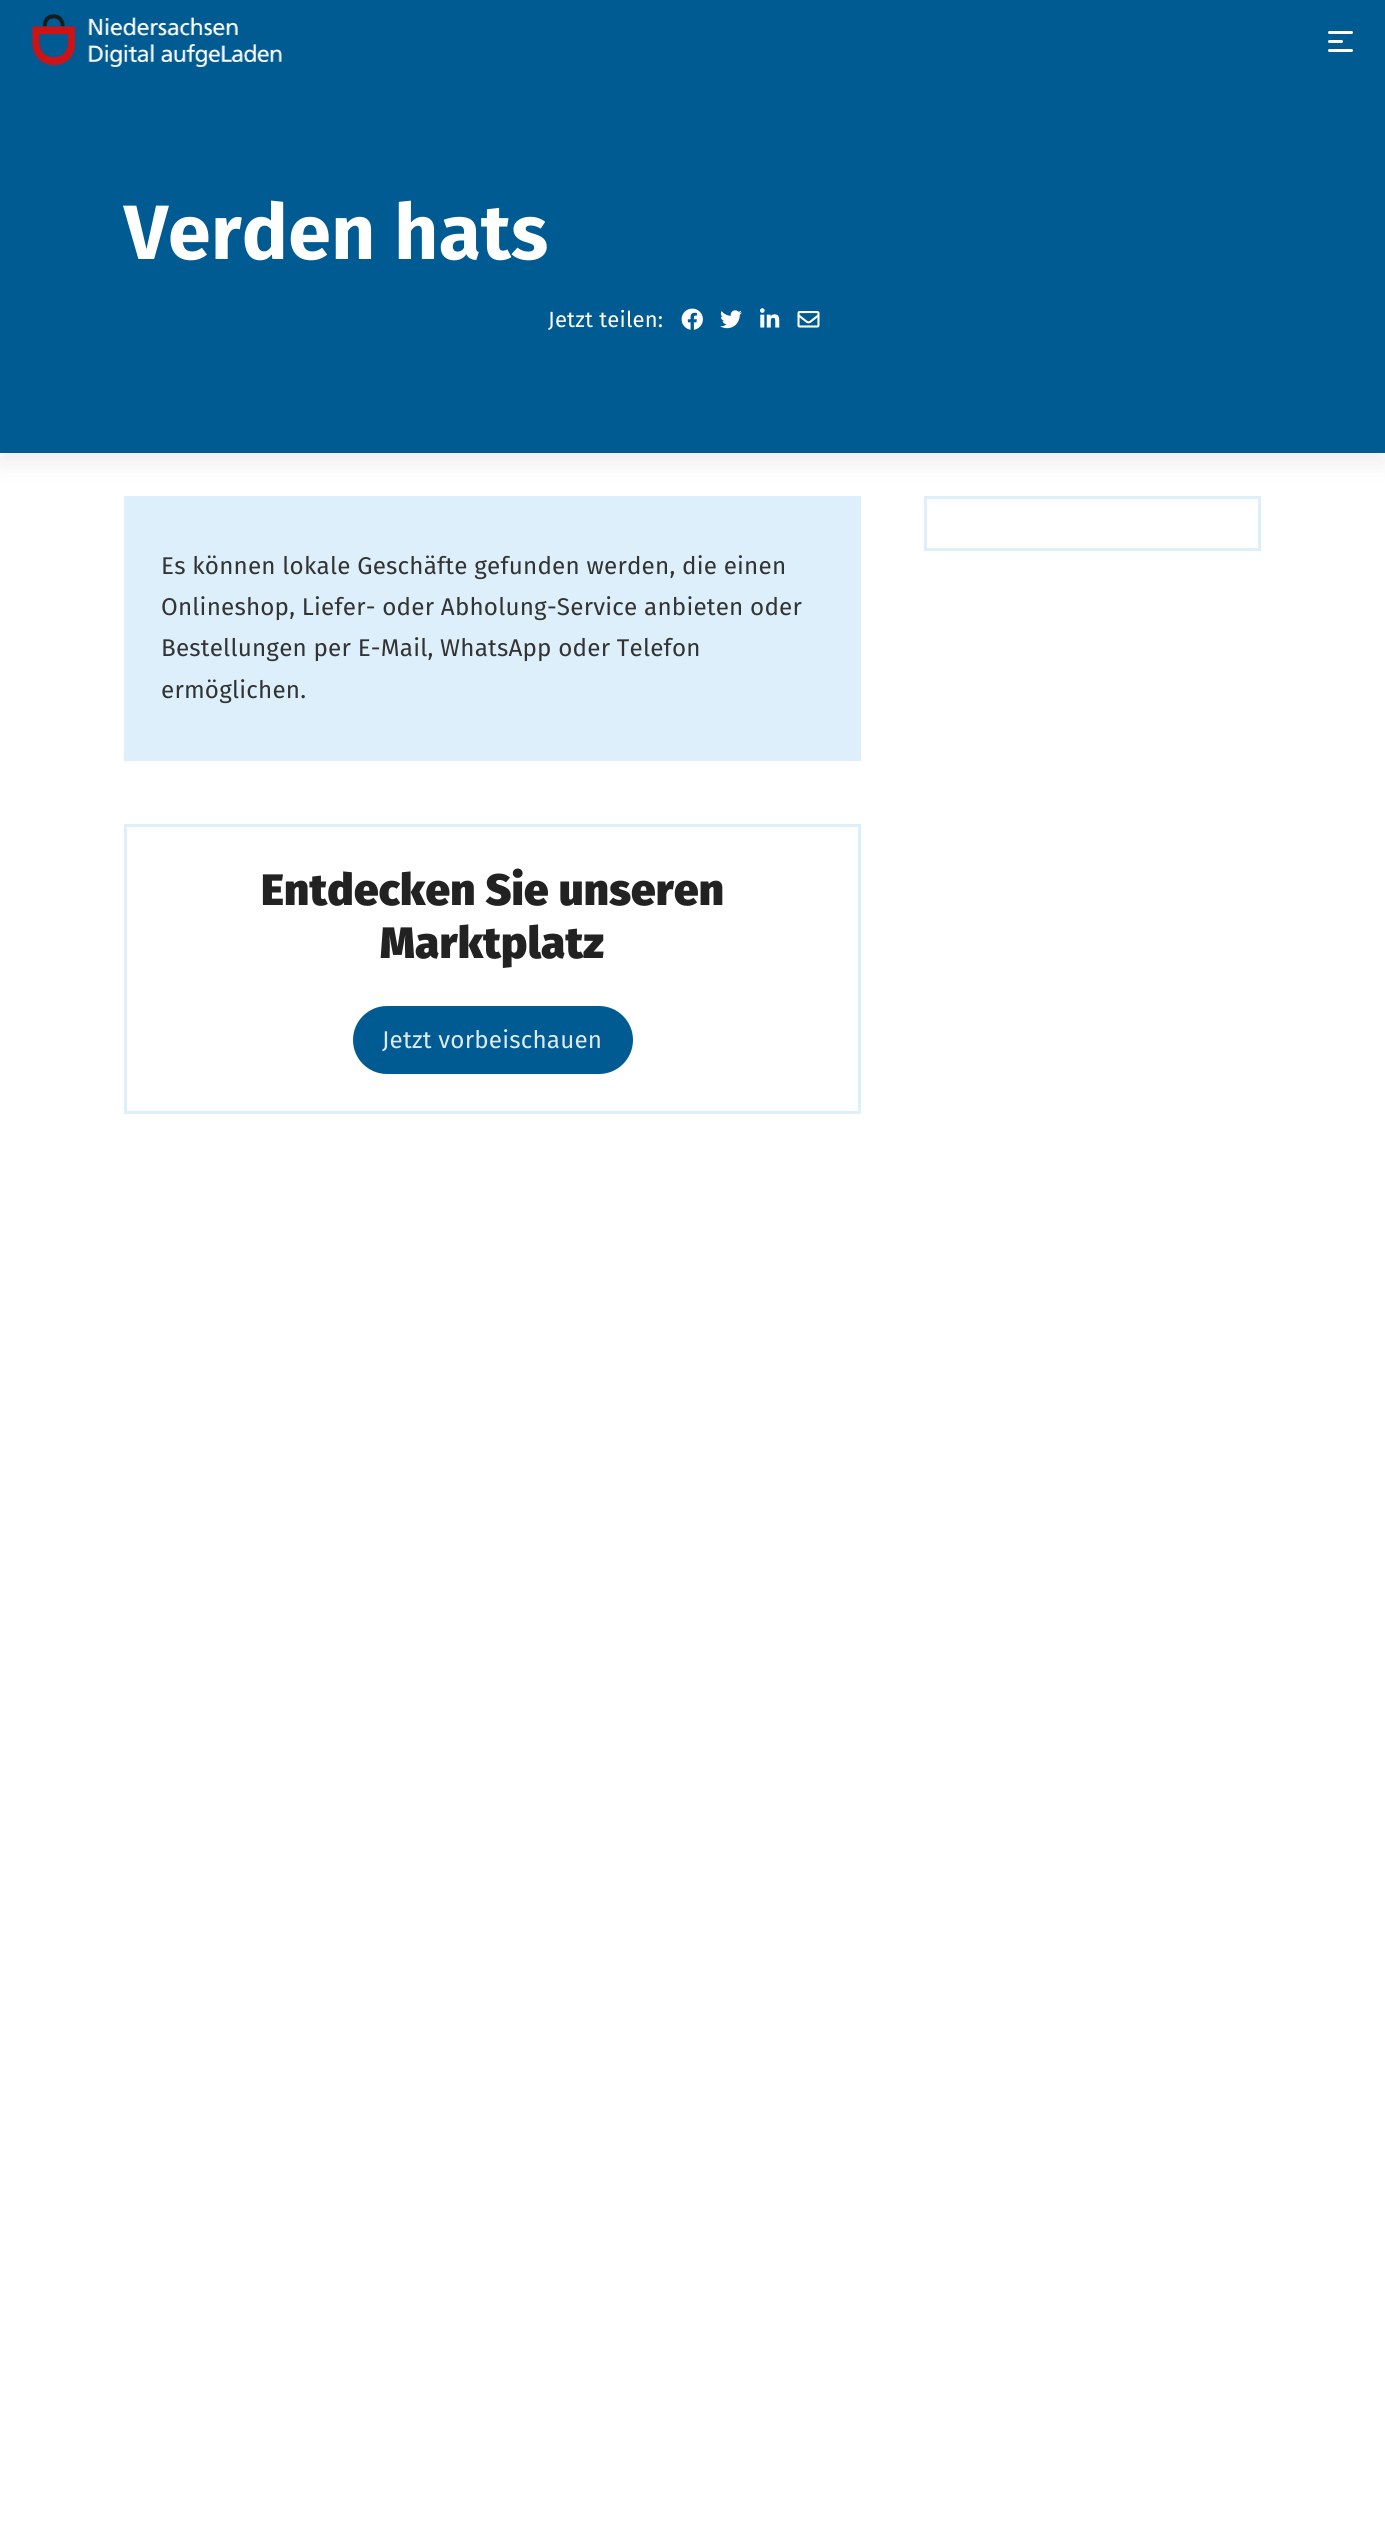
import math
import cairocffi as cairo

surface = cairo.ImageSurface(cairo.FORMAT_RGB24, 1385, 2538)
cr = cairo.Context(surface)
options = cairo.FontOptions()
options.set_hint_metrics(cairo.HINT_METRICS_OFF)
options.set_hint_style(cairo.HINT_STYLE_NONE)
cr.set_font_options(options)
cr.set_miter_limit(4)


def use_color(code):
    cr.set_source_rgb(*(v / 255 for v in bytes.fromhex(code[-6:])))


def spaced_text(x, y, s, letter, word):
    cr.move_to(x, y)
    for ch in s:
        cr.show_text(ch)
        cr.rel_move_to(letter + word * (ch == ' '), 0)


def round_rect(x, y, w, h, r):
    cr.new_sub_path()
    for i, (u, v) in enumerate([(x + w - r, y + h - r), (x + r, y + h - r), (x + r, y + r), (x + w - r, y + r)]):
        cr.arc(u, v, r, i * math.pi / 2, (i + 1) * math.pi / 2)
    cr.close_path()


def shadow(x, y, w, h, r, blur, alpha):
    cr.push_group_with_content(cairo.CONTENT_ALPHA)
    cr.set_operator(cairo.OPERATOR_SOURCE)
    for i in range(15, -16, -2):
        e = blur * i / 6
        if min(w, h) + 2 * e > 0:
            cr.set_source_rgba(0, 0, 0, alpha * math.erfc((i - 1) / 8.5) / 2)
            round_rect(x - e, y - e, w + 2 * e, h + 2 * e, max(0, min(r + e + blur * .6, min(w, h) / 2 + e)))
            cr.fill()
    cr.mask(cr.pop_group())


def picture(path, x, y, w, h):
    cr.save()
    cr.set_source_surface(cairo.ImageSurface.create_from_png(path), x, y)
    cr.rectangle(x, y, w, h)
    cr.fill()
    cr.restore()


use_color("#ffffff")
cr.paint()
use_color("#000000")
shadow(0, 10, 1385, 453, 0, 12.5, 0.07)
use_color("#005b93")
cr.rectangle(0, 0, 1385, 453)
cr.fill()
picture("img1.png", 31, 14, 251, 53)
use_color("#ffffff")
round_rect(1328, 31, 25, 3, 1.5)
cr.fill()
round_rect(1328, 40, 15, 3, 1.5)
cr.fill()
round_rect(1328, 49, 25, 3, 1.5)
cr.fill()
cr.select_font_face("Fira Sans", cairo.FONT_SLANT_NORMAL, cairo.FONT_WEIGHT_BOLD)
cr.set_font_size(77)
spaced_text(124, 259, "Verden hats", 0.2, 0)
cr.select_font_face("Fira Sans")
cr.set_font_size(22)
spaced_text(548, 327, "Jetzt teilen:", 0.2, 0)
picture("img2.png", 681, 308, 22, 22)
picture("img3.png", 720, 310, 22, 19)
picture("img4.png", 760, 308, 20, 20)
picture("img5.png", 797, 311, 23, 17)
cr.rectangle(925.5, 497.5, 334, 52)
use_color("#ddeffb")
cr.set_line_width(3)
cr.stroke()
cr.rectangle(124, 496, 737, 265)
cr.fill()
cr.set_font_size(24.2)
use_color("#333333")
spaced_text(161, 574, "Es können lokale Geschäfte gefunden werden, die einen", 0.2, 0)
spaced_text(161, 615, "Onlineshop, Liefer- oder Abholung-Service anbieten oder", 0.2, 0)
spaced_text(161, 656, "Bestellungen per E-Mail, WhatsApp oder Telefon", 0.2, 0)
spaced_text(161, 698, "ermöglichen.", 0.2, 0)
cr.rectangle(125.5, 825.5, 734, 287)
use_color("#ddeffb")
cr.stroke()
cr.select_font_face("Fira Sans Black")
cr.set_font_size(44)
use_color("#222222")
spaced_text(261, 905, "Entdecken Sie unseren", 0.2, 0)
spaced_text(380, 958, "Marktplatz", 0.2, 0)
use_color("#005b93")
round_rect(353, 1006, 280, 68, 34)
cr.fill()
cr.select_font_face("Fira Sans")
cr.set_font_size(24.2)
use_color("#deeaf1")
spaced_text(382, 1048, "Jetzt vorbeischauen", 0.2, 0)
surface.write_to_png("result.png")
